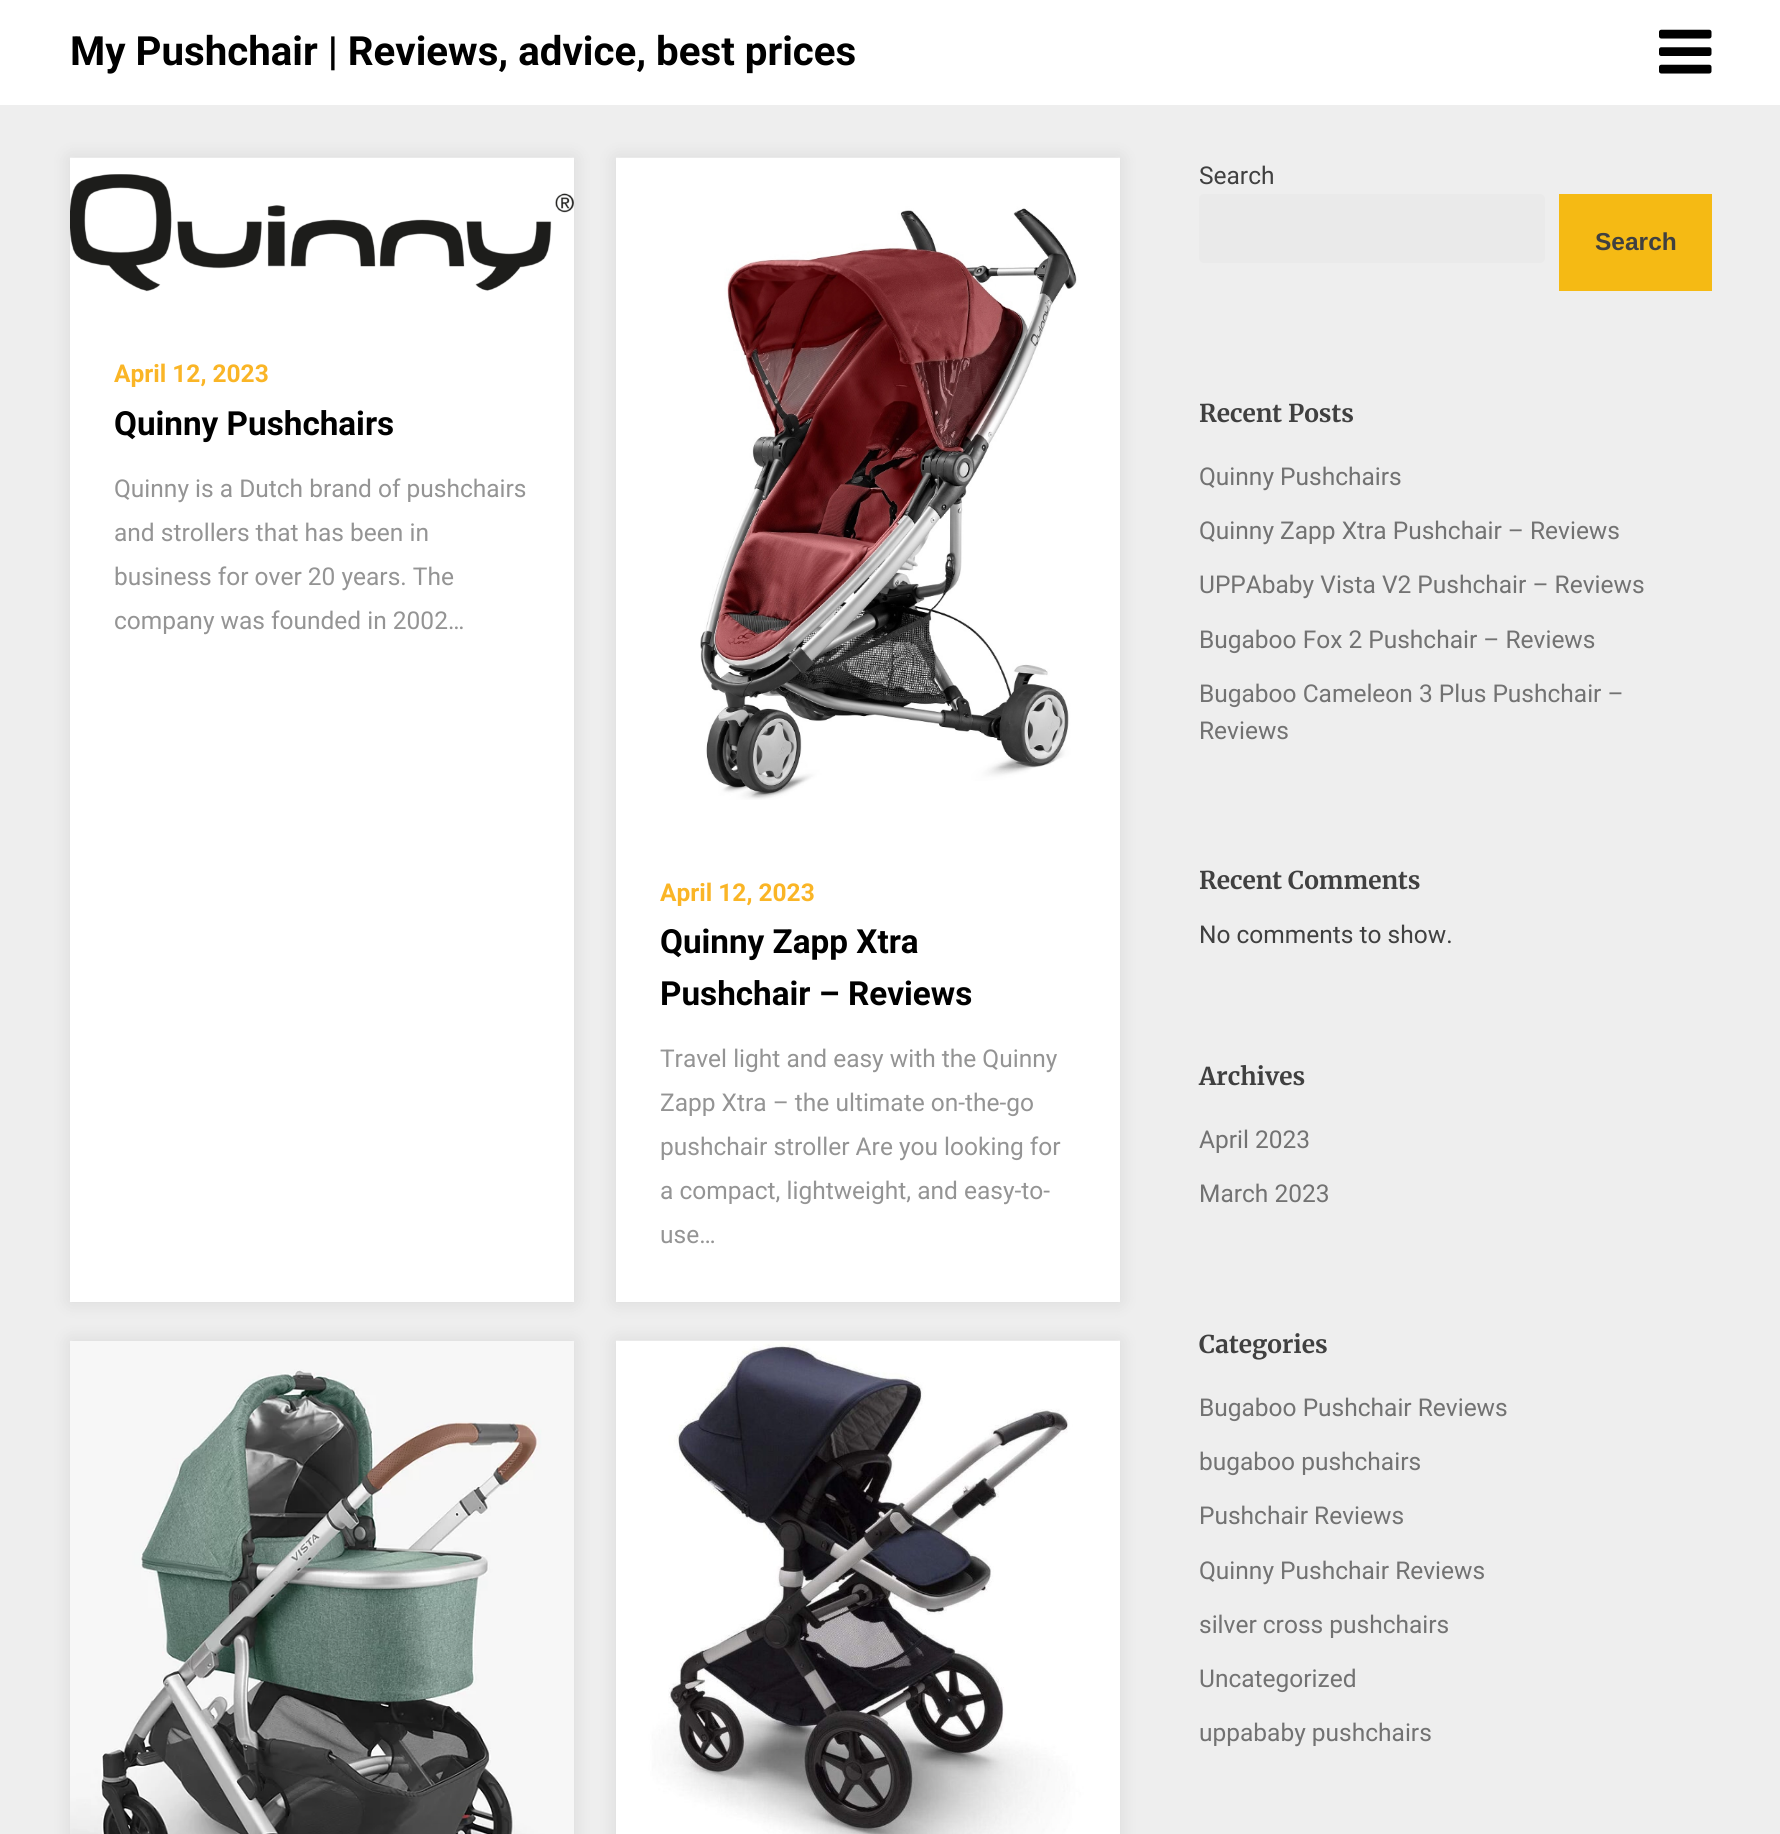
import math
import cairocffi as cairo

surface = cairo.ImageSurface(cairo.FORMAT_RGB24, 1780, 1834)
cr = cairo.Context(surface)
options = cairo.FontOptions()
options.set_hint_metrics(cairo.HINT_METRICS_OFF)
options.set_hint_style(cairo.HINT_STYLE_NONE)
cr.set_font_options(options)
cr.set_miter_limit(4)


def use_color(code):
    cr.set_source_rgb(*(v / 255 for v in bytes.fromhex(code[-6:])))


def round_rect(x, y, w, h, r):
    cr.new_sub_path()
    for i, (u, v) in enumerate([(x + w - r, y + h - r), (x + r, y + h - r), (x + r, y + r), (x + w - r, y + r)]):
        cr.arc(u, v, r, i * math.pi / 2, (i + 1) * math.pi / 2)
    cr.close_path()


def shadow(x, y, w, h, r, blur, alpha):
    cr.push_group_with_content(cairo.CONTENT_ALPHA)
    cr.set_operator(cairo.OPERATOR_SOURCE)
    for i in range(15, -16, -2):
        e = blur * i / 6
        if min(w, h) + 2 * e > 0:
            cr.set_source_rgba(0, 0, 0, alpha * math.erfc((i - 1) / 8.5) / 2)
            round_rect(x - e, y - e, w + 2 * e, h + 2 * e, max(0, min(r + e + blur * .6, min(w, h) / 2 + e)))
            cr.fill()
    cr.mask(cr.pop_group())


def picture(path, x, y, w, h):
    cr.save()
    cr.set_source_surface(cairo.ImageSurface.create_from_png(path), x, y)
    cr.rectangle(x, y, w, h)
    cr.fill()
    cr.restore()


use_color("#eeeeee")
cr.paint()
use_color("#ffffff")
cr.rectangle(0, 0, 1780, 105)
cr.fill()
cr.select_font_face("Roboto", cairo.FONT_SLANT_NORMAL, cairo.FONT_WEIGHT_BOLD)
cr.set_font_size(40.25)
use_color("#000000")
cr.move_to(70, 65)
cr.show_text("My Pushchair | Reviews, advice, best prices")
picture("img1.png", 1659, 29, 53, 45)
use_color("#000000")
shadow(70, 158, 504, 1144, 0, 9, 0.1)
use_color("#ffffff")
cr.rectangle(70, 292, 504, 1010)
cr.fill()
picture("img2.png", 70, 157, 504, 135)
cr.set_font_size(24.5)
use_color("#fab526")
cr.move_to(114, 382)
cr.show_text("April 12, 2023")
cr.set_font_size(33.25)
use_color("#000000")
cr.move_to(114, 435)
cr.show_text("Quinny Pushchairs")
cr.select_font_face("Roboto")
cr.set_font_size(24.5)
use_color("#949494")
cr.move_to(114, 497)
cr.show_text("Quinny is a Dutch brand of pushchairs")
cr.move_to(114, 541)
cr.show_text("and strollers that has been in")
cr.move_to(114, 585)
cr.show_text("business for over 20 years. The")
cr.move_to(114, 629)
cr.show_text("company was founded in 2002…")
use_color("#000000")
shadow(616, 158, 504, 1144, 0, 9, 0.1)
use_color("#ffffff")
cr.rectangle(616, 800, 504, 502)
cr.fill()
picture("img3.png", 616, 157, 504, 643)
cr.select_font_face("Roboto", cairo.FONT_SLANT_NORMAL, cairo.FONT_WEIGHT_BOLD)
use_color("#fab526")
cr.move_to(660, 901)
cr.show_text("April 12, 2023")
cr.set_font_size(33.25)
use_color("#000000")
cr.move_to(660, 953)
cr.show_text("Quinny Zapp Xtra")
cr.move_to(660, 1005)
cr.show_text("Pushchair – Reviews")
cr.select_font_face("Roboto")
cr.set_font_size(24.5)
use_color("#949494")
cr.move_to(660, 1067)
cr.show_text("Travel light and easy with the Quinny")
cr.move_to(660, 1111)
cr.show_text("Zapp Xtra – the ultimate on-the-go")
cr.move_to(660, 1155)
cr.show_text("pushchair stroller Are you looking for")
cr.move_to(660, 1199)
cr.show_text("a compact, lightweight, and easy-to-")
cr.move_to(660, 1243)
cr.show_text("use…")
use_color("#000000")
shadow(70, 1341, 504, 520, 0, 9, 0.1)
picture("img4.png", 70, 1341, 504, 493)
shadow(616, 1341, 504, 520, 0, 9, 0.1)
picture("img5.png", 616, 1340, 504, 494)
use_color("#404040")
cr.move_to(1199, 184)
cr.show_text("Search")
use_color("#eaeaea")
round_rect(1199, 194, 346, 69, 5)
cr.fill()
use_color("#f5ba14")
cr.rectangle(1559, 194, 153, 97)
cr.fill()
cr.select_font_face("Liberation Sans", cairo.FONT_SLANT_NORMAL, cairo.FONT_WEIGHT_BOLD)
use_color("#404040")
cr.move_to(1595, 250)
cr.show_text("Search")
cr.select_font_face("Merriweather", cairo.FONT_SLANT_NORMAL, cairo.FONT_WEIGHT_BOLD)
cr.move_to(1199, 422)
cr.show_text("Recent Posts")
cr.select_font_face("Roboto")
use_color("#727272")
cr.move_to(1199, 485)
cr.show_text("Quinny Pushchairs")
cr.move_to(1199, 539)
cr.show_text("Quinny Zapp Xtra Pushchair – Reviews")
cr.move_to(1199, 593)
cr.show_text("UPPAbaby Vista V2 Pushchair – Reviews")
cr.move_to(1199, 648)
cr.show_text("Bugaboo Fox 2 Pushchair – Reviews")
cr.move_to(1199, 702)
cr.show_text("Bugaboo Cameleon 3 Plus Pushchair –")
cr.move_to(1199, 739)
cr.show_text("Reviews")
cr.select_font_face("Merriweather", cairo.FONT_SLANT_NORMAL, cairo.FONT_WEIGHT_BOLD)
use_color("#404040")
cr.move_to(1199, 889)
cr.show_text("Recent Comments")
cr.select_font_face("Roboto")
cr.move_to(1199, 943)
cr.show_text("No comments to show.")
cr.select_font_face("Merriweather", cairo.FONT_SLANT_NORMAL, cairo.FONT_WEIGHT_BOLD)
cr.move_to(1199, 1085)
cr.show_text("Archives")
cr.select_font_face("Roboto")
use_color("#727272")
cr.move_to(1199, 1148)
cr.show_text("April 2023")
cr.move_to(1199, 1202)
cr.show_text("March 2023")
cr.select_font_face("Merriweather", cairo.FONT_SLANT_NORMAL, cairo.FONT_WEIGHT_BOLD)
use_color("#404040")
cr.move_to(1199, 1353)
cr.show_text("Categories")
cr.select_font_face("Roboto")
use_color("#727272")
cr.move_to(1199, 1416)
cr.show_text("Bugaboo Pushchair Reviews")
cr.move_to(1199, 1470)
cr.show_text("bugaboo pushchairs")
cr.move_to(1199, 1524)
cr.show_text("Pushchair Reviews")
cr.move_to(1199, 1579)
cr.show_text("Quinny Pushchair Reviews")
cr.move_to(1199, 1633)
cr.show_text("silver cross pushchairs")
cr.move_to(1199, 1687)
cr.show_text("Uncategorized")
cr.move_to(1199, 1741)
cr.show_text("uppababy pushchairs")
surface.write_to_png("result.png")
